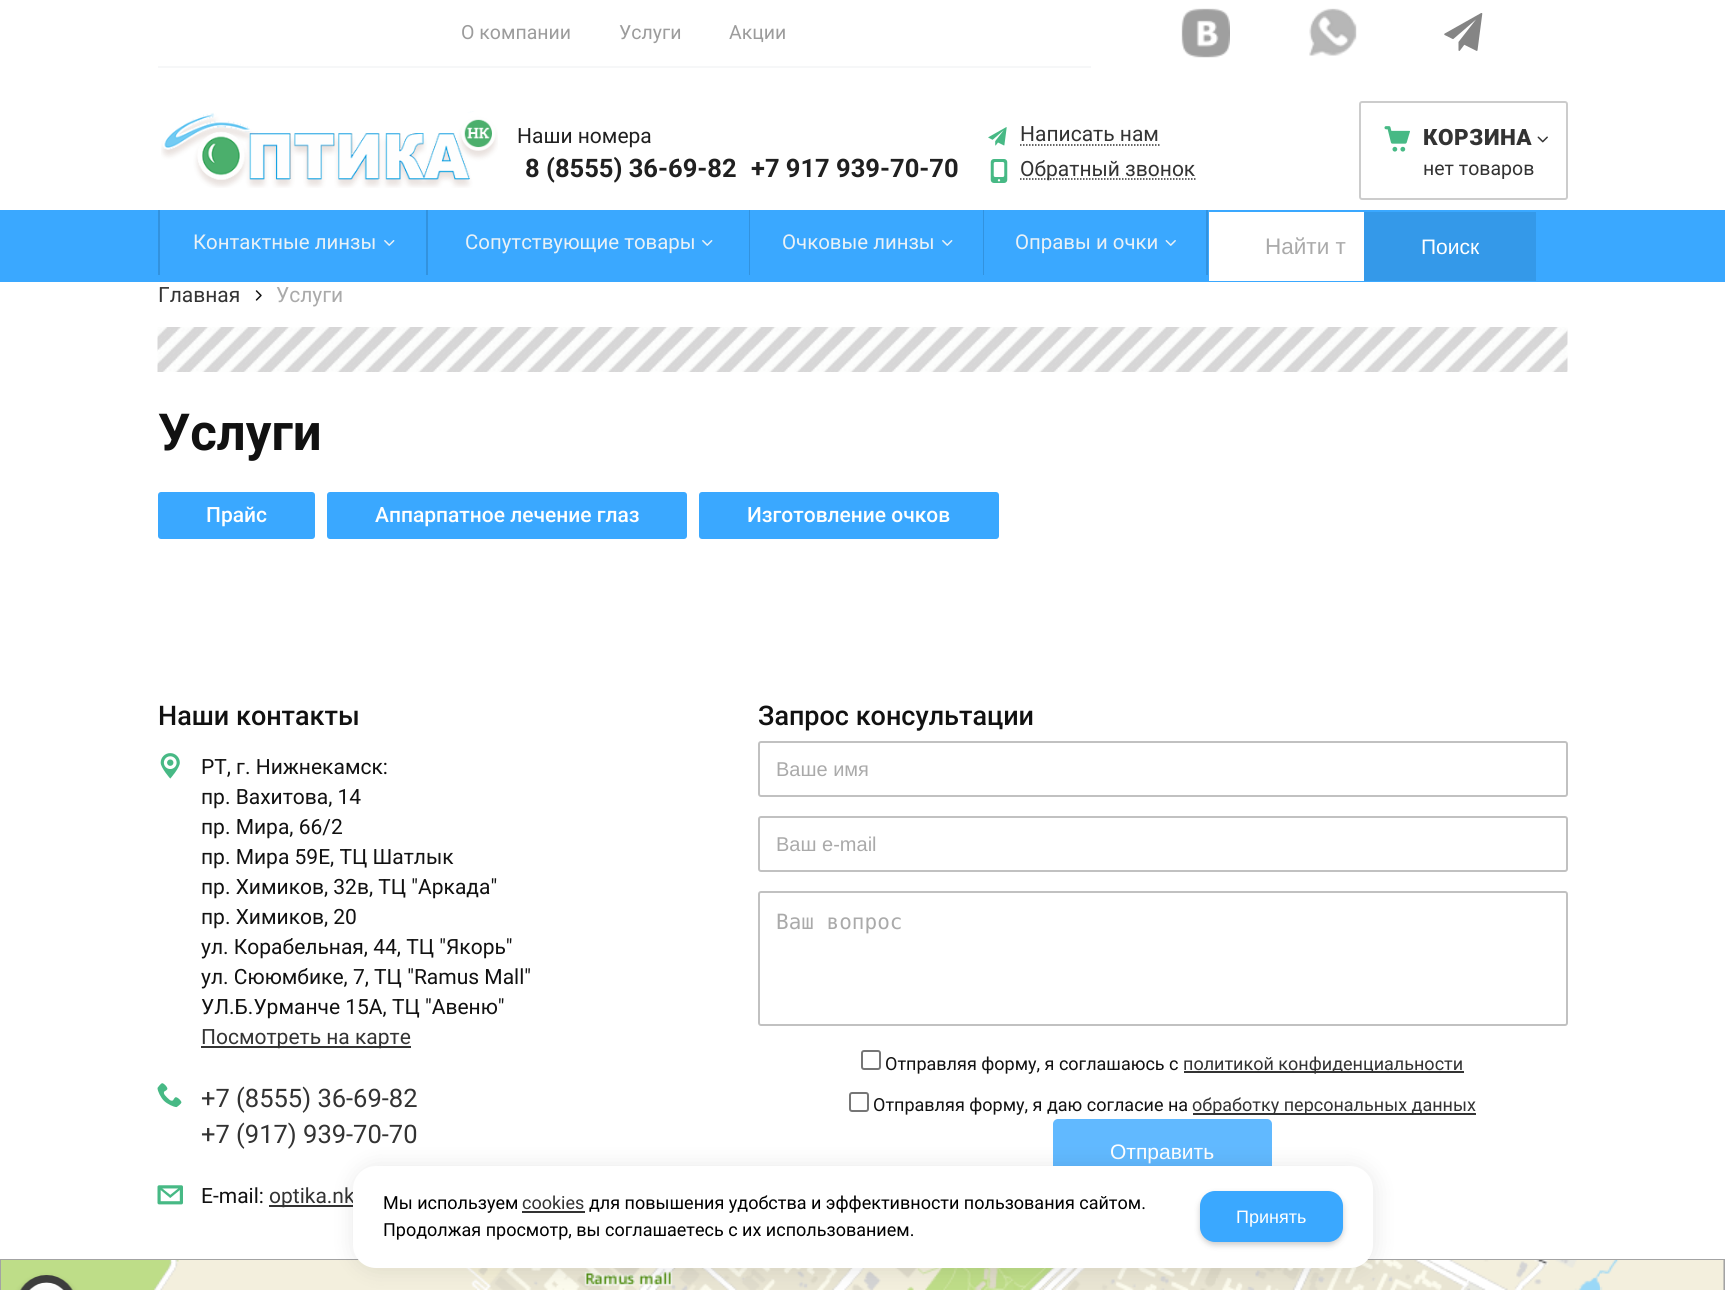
import math
import cairocffi as cairo

surface = cairo.ImageSurface(cairo.FORMAT_RGB24, 1725, 1290)
cr = cairo.Context(surface)
options = cairo.FontOptions()
options.set_hint_metrics(cairo.HINT_METRICS_OFF)
options.set_hint_style(cairo.HINT_STYLE_NONE)
cr.set_font_options(options)
cr.set_miter_limit(4)


def use_color(code):
    cr.set_source_rgb(*(v / 255 for v in bytes.fromhex(code[-6:])))


def spaced_text(x, y, s, letter, word):
    cr.move_to(x, y)
    for ch in s:
        cr.show_text(ch)
        cr.rel_move_to(letter + word * (ch == ' '), 0)


def round_rect(x, y, w, h, r):
    cr.new_sub_path()
    for i, (u, v) in enumerate([(x + w - r, y + h - r), (x + r, y + h - r), (x + r, y + r), (x + w - r, y + r)]):
        cr.arc(u, v, r, i * math.pi / 2, (i + 1) * math.pi / 2)
    cr.close_path()


def shadow(x, y, w, h, r, blur, alpha):
    cr.push_group_with_content(cairo.CONTENT_ALPHA)
    cr.set_operator(cairo.OPERATOR_SOURCE)
    for i in range(15, -16, -2):
        e = blur * i / 6
        if min(w, h) + 2 * e > 0:
            cr.set_source_rgba(0, 0, 0, alpha * math.erfc((i - 1) / 8.5) / 2)
            round_rect(x - e, y - e, w + 2 * e, h + 2 * e, max(0, min(r + e + blur * .6, min(w, h) / 2 + e)))
            cr.fill()
    cr.mask(cr.pop_group())


def picture(path, x, y, w, h):
    cr.save()
    cr.set_source_surface(cairo.ImageSurface.create_from_png(path), x, y)
    cr.rectangle(x, y, w, h)
    cr.fill()
    cr.restore()


use_color("#ffffff")
cr.paint()
use_color("#f6f7f8")
cr.rectangle(158, 66, 933, 2)
cr.fill()
cr.select_font_face("Roboto")
cr.set_font_size(19.5)
use_color("#9c9c9c")
cr.move_to(461, 39)
cr.show_text("О компании")
cr.move_to(619, 39)
cr.show_text("Услуги")
cr.move_to(729, 39)
cr.show_text("Акции")
picture("img1.png", 1181, 8, 49, 50)
picture("img2.png", 1309, 8, 48, 48)
picture("img3.png", 1444, 13, 39, 38)
picture("img4.png", 161, 111, 337, 77)
cr.set_font_size(21)
use_color("#202020")
cr.move_to(517, 143)
cr.show_text("Наши номера")
cr.select_font_face("Roboto", cairo.FONT_SLANT_NORMAL, cairo.FONT_WEIGHT_BOLD)
cr.set_font_size(25.5)
cr.move_to(525, 177)
cr.show_text("8 (8555) 36-69-82")
cr.move_to(751, 177)
cr.show_text("+7 917 939-70-70")
picture("img5.png", 988, 127, 19, 19)
cr.new_path()
cr.move_to(1020, 145)
cr.line_to(1159.5, 145)
use_color("#333333")
cr.set_line_width(1.5)
cr.set_dash([1.5, 1.5])
cr.stroke()
cr.select_font_face("Roboto")
cr.set_font_size(21)
cr.move_to(1020, 141)
cr.show_text("Написать нам")
picture("img6.png", 990, 159, 18, 24)
cr.new_path()
cr.move_to(1020, 179)
cr.line_to(1195.5, 179)
cr.stroke()
cr.move_to(1020, 176)
cr.show_text("Обратный звонок")
round_rect(1360, 102, 207, 97, 2)
use_color("#cccccc")
cr.set_line_width(2)
cr.set_dash([])
cr.stroke()
picture("img7.png", 1384, 126, 26, 26)
cr.select_font_face("Roboto Black")
cr.set_font_size(22.5)
use_color("#333333")
spaced_text(1423, 145, "КОРЗИНА", 0.5, 0)
picture("img8.png", 1537, 136, 11, 7)
cr.select_font_face("Roboto")
cr.set_font_size(19.5)
cr.move_to(1423, 175)
cr.show_text("нет товаров")
use_color("#3aa8ff")
cr.rectangle(0, 210, 1725, 72)
cr.fill()
use_color("#3292de")
cr.rectangle(158, 210, 2, 65)
cr.fill()
cr.rectangle(426, 210, 2, 65)
cr.fill()
cr.set_font_size(20.4)
use_color("#e9f1f6")
cr.move_to(193, 249)
cr.show_text("Контактные линзы")
picture("img9.png", 384, 240, 11, 6)
use_color("#3292de")
cr.rectangle(749, 210, 1, 65)
cr.fill()
use_color("#e9f1f6")
cr.move_to(465, 249)
cr.show_text("Сопутствующие товары")
picture("img9.png", 702, 240, 11, 6)
use_color("#3292de")
cr.rectangle(983, 210, 1, 65)
cr.fill()
use_color("#e9f1f6")
cr.move_to(782, 249)
cr.show_text("Очковые линзы")
picture("img9.png", 942, 240, 11, 6)
use_color("#3292de")
cr.rectangle(1206, 210, 2, 65)
cr.fill()
use_color("#e9f1f6")
cr.move_to(1015, 249)
cr.show_text("Оправы и очки")
picture("img10.png", 1165, 240, 11, 6)
use_color("#ffffff")
cr.rectangle(1209, 212, 155, 69)
cr.fill()
cr.select_font_face("Liberation Sans")
cr.set_font_size(22.5)
use_color("#aaaaaa")
cr.move_to(1265, 254)
cr.show_text("Найти т")
use_color("#3499e9")
cr.rectangle(1364, 212, 172, 69)
cr.fill()
cr.set_font_size(21)
use_color("#ffffff")
cr.move_to(1421, 254)
cr.show_text("Поиск")
cr.select_font_face("Roboto")
use_color("#333333")
cr.move_to(158, 302)
cr.show_text("Главная")
picture("img11.png", 255, 290, 7, 11)
use_color("#aaaaaa")
cr.move_to(276, 302)
cr.show_text("Услуги")
picture("img12.png", 157, 327, 1411, 45)
cr.select_font_face("Roboto", cairo.FONT_SLANT_NORMAL, cairo.FONT_WEIGHT_BOLD)
cr.set_font_size(51)
use_color("#111111")
cr.move_to(158, 450)
cr.show_text("Услуги")
use_color("#3aa8ff")
round_rect(158, 492, 157, 47, 3)
cr.fill()
cr.select_font_face("Roboto Medium")
cr.set_font_size(21)
use_color("#ffffff")
cr.move_to(206, 522)
cr.show_text("Прайс")
use_color("#3aa8ff")
round_rect(327, 492, 360, 47, 3)
cr.fill()
use_color("#ffffff")
cr.move_to(375, 522)
cr.show_text("Аппарпатное лечение глаз")
use_color("#3aa8ff")
round_rect(699, 492, 300, 47, 3)
cr.fill()
use_color("#ffffff")
cr.move_to(747, 522)
cr.show_text("Изготовление очков")
cr.set_font_size(27)
use_color("#111111")
cr.move_to(158, 725)
cr.show_text("Наши контакты")
picture("img13.png", 160, 753, 20, 26)
cr.select_font_face("Roboto")
cr.set_font_size(21)
cr.move_to(201, 774)
cr.show_text("РТ, г. Нижнекамск:")
cr.move_to(201, 804)
cr.show_text("пр. Вахитова, 14")
cr.move_to(201, 834)
cr.show_text("пр. Мира, 66/2")
cr.move_to(201, 864)
cr.show_text("пр. Мира 59Е, ТЦ Шатлык")
cr.move_to(201, 894)
cr.show_text("пр. Химиков, 32в, ТЦ \"Аркада\"")
cr.move_to(201, 924)
cr.show_text("пр. Химиков, 20")
cr.move_to(201, 954)
cr.show_text("ул. Корабельная, 44, ТЦ \"Якорь\"")
cr.move_to(201, 984)
cr.show_text("ул. Сююмбике, 7, ТЦ \"Ramus Mall\"")
cr.move_to(201, 1014)
cr.show_text("УЛ.Б.Урманче 15А, ТЦ \"Авеню\"")
use_color("#333333")
cr.rectangle(201, 1046, 210, 2)
cr.fill()
cr.move_to(201, 1044)
cr.show_text("Посмотреть на карте")
picture("img14.png", 157, 1083, 25, 25)
cr.set_font_size(25.5)
cr.move_to(201, 1107)
cr.show_text("+7 (8555) 36-69-82")
cr.move_to(201, 1143)
cr.show_text("+7 (917) 939-70-70")
picture("img15.png", 157, 1185, 26, 20)
cr.set_font_size(21)
use_color("#111111")
cr.move_to(201, 1203)
cr.show_text("E-mail:")
use_color("#333333")
cr.rectangle(269, 1205, 84, 2)
cr.fill()
cr.move_to(269, 1203)
cr.show_text("optika.nk")
cr.select_font_face("Roboto Medium")
cr.set_font_size(27)
use_color("#111111")
cr.move_to(758, 725)
cr.show_text("Запрос консультации")
round_rect(759, 742, 808, 54, 2)
use_color("#c1c1c1")
cr.stroke()
cr.select_font_face("Liberation Sans")
cr.set_font_size(20)
use_color("#aaaaaa")
cr.move_to(776, 776)
cr.show_text("Ваше имя")
round_rect(759, 817, 808, 54, 2)
use_color("#c1c1c1")
cr.stroke()
use_color("#aaaaaa")
cr.move_to(776, 851)
cr.show_text("Ваш e-mail")
round_rect(759, 892, 808, 133, 2)
use_color("#c1c1c1")
cr.stroke()
cr.select_font_face("DejaVu Sans Mono")
cr.set_font_size(21)
use_color("#aaaaaa")
cr.move_to(776, 929)
cr.show_text("Ваш вопрос")
round_rect(862, 1051, 18, 18, 2)
use_color("#767676")
cr.stroke()
cr.select_font_face("Roboto")
cr.set_font_size(18)
use_color("#111111")
cr.move_to(885, 1070)
cr.show_text("Отправляя форму, я соглашаюсь c")
use_color("#333333")
cr.rectangle(1184, 1071, 280, 2)
cr.fill()
cr.move_to(1183, 1070)
cr.show_text("политикой конфиденциальности")
round_rect(850, 1093, 18, 18, 2)
use_color("#767676")
cr.stroke()
use_color("#111111")
cr.move_to(873, 1111)
cr.show_text("Отправляя форму, я даю согласие на")
use_color("#333333")
cr.rectangle(1193, 1113, 283, 2)
cr.fill()
cr.move_to(1192, 1111)
cr.show_text("обработку персональных данных")
use_color("#61b9ff")
round_rect(1053, 1119, 219, 69, 5)
cr.fill()
cr.select_font_face("Liberation Sans")
cr.set_font_size(21)
use_color("#ffffff")
cr.move_to(1110, 1159)
cr.show_text("Отправить")
cr.rectangle(1, 1260, 1723, 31)
use_color("#a3a3a3")
cr.stroke()
picture("img16.png", 1, 1260, 1723, 30)
use_color("#000000")
shadow(354, 1167, 1020, 102, 23, 11, 0.1)
use_color("#ffffff")
round_rect(353, 1166, 1020, 102, 23)
cr.fill()
cr.select_font_face("Roboto")
cr.set_font_size(18)
use_color("#000000")
cr.move_to(383, 1209)
cr.show_text("Мы используем")
use_color("#333333")
cr.move_to(522, 1209)
cr.show_text("cookies")
cr.rectangle(522, 1211, 63, 2)
cr.fill()
use_color("#000000")
cr.move_to(589, 1209)
cr.show_text("для повышения удобства и эффективности пользования сайтом.")
cr.move_to(383, 1236)
cr.show_text("Продолжая просмотр, вы соглашаетесь с их использованием.")
use_color("#000000")
shadow(1200, 1194, 143, 51, 15, 3, 0.2)
use_color("#3aa8ff")
round_rect(1200, 1191, 143, 51, 15)
cr.fill()
cr.select_font_face("Liberation Sans")
use_color("#ffffff")
cr.move_to(1236, 1223)
cr.show_text("Принять")
surface.write_to_png("result.png")
